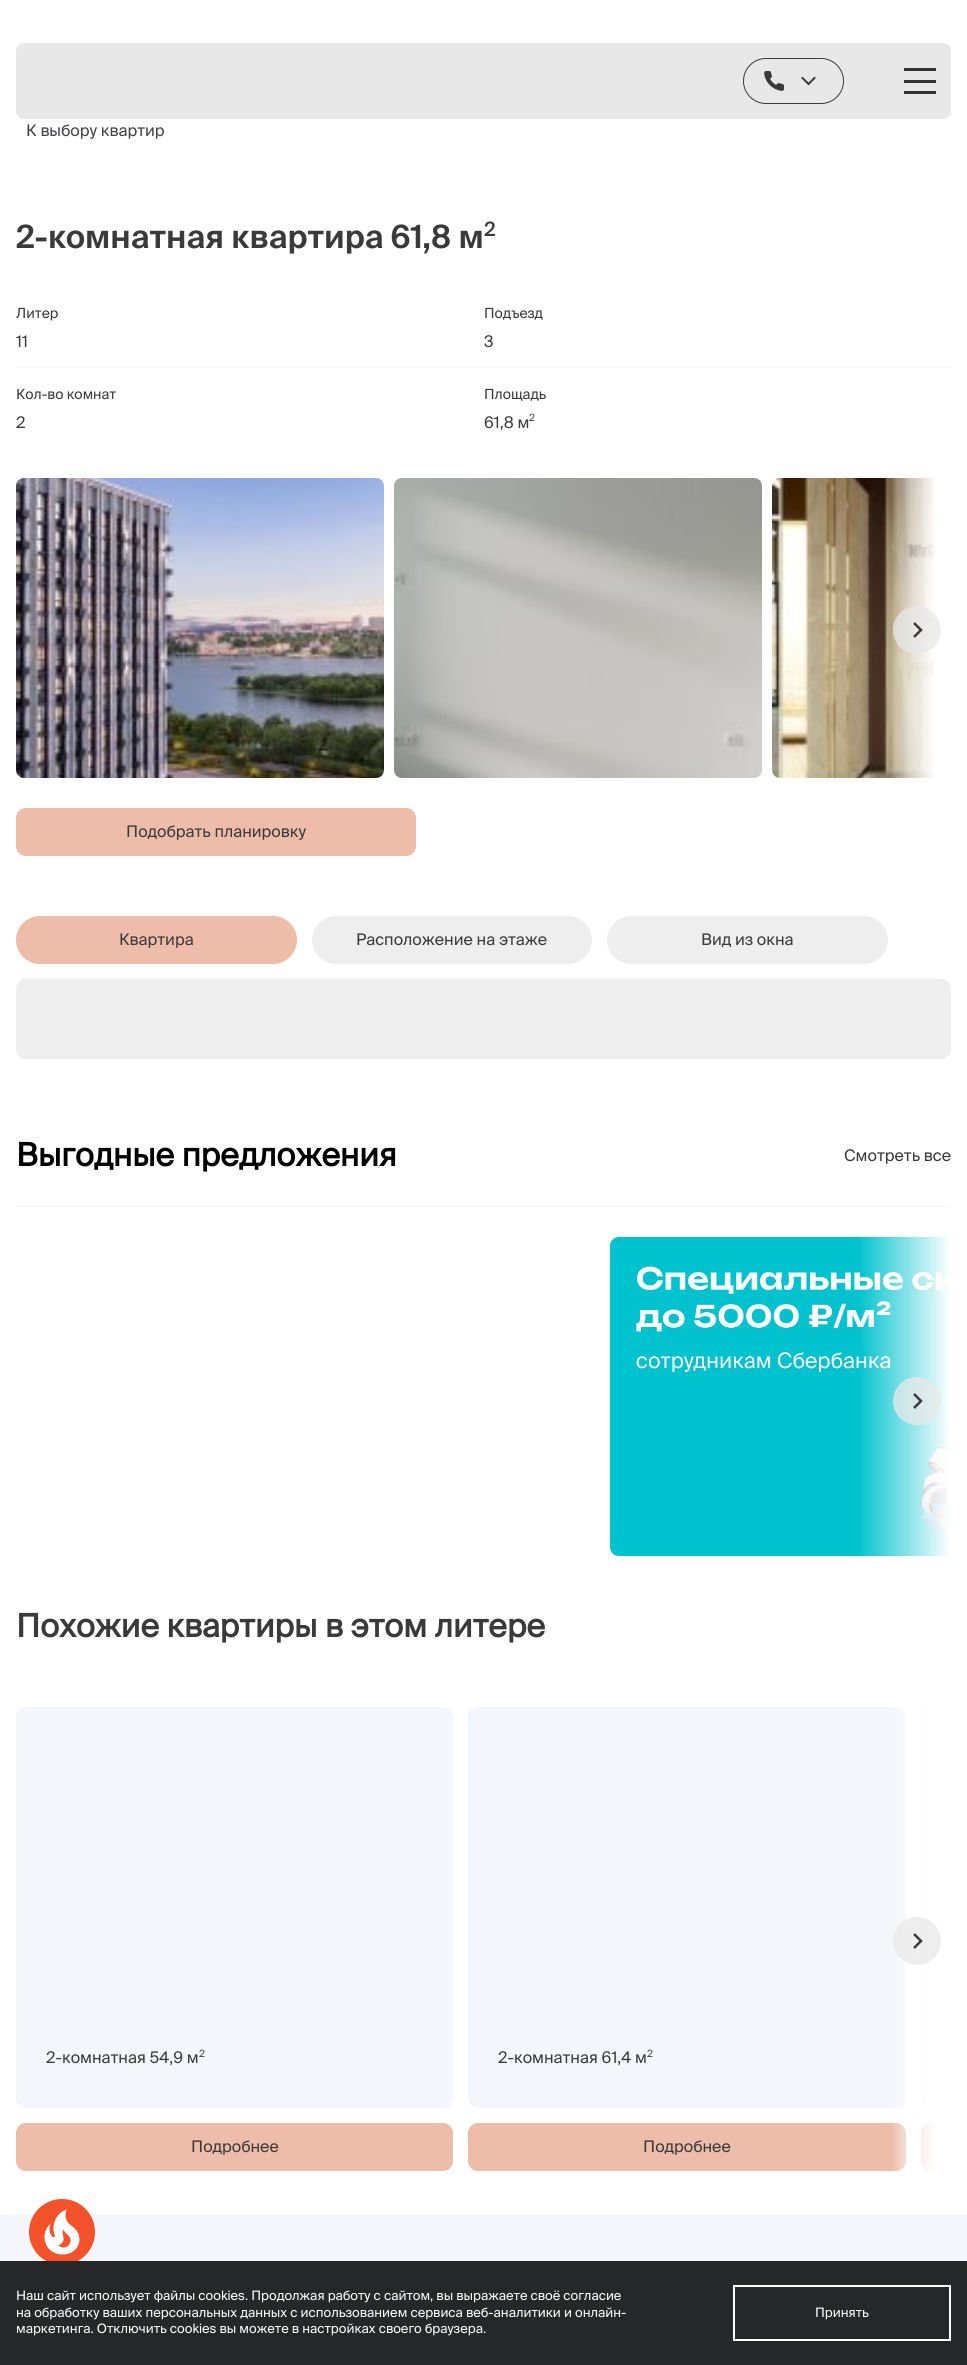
import math
import cairocffi as cairo

surface = cairo.ImageSurface(cairo.FORMAT_RGB24, 967, 2365)
cr = cairo.Context(surface)
options = cairo.FontOptions()
options.set_hint_metrics(cairo.HINT_METRICS_OFF)
options.set_hint_style(cairo.HINT_STYLE_NONE)
cr.set_font_options(options)
cr.set_miter_limit(4)


def use_color(code):
    cr.set_source_rgb(*(v / 255 for v in bytes.fromhex(code[-6:])))


def round_rect(x, y, w, h, r):
    cr.new_sub_path()
    for i, (u, v) in enumerate([(x + w - r, y + h - r), (x + r, y + h - r), (x + r, y + r), (x + w - r, y + r)]):
        cr.arc(u, v, r, i * math.pi / 2, (i + 1) * math.pi / 2)
    cr.close_path()


def picture(path, x, y, w, h):
    cr.save()
    cr.set_source_surface(cairo.ImageSurface.create_from_png(path), x, y)
    cr.rectangle(x, y, w, h)
    cr.fill()
    cr.restore()


use_color("#ffffff")
cr.paint()
use_color("#e8e8e8")
round_rect(16, 43, 935, 76, 8)
cr.fill()
round_rect(743.5, 58.5, 100, 45, 22.5)
use_color("#3a3a3a")
cr.set_line_width(1)
cr.stroke()
picture("img1.png", 764, 71, 20, 20)
cr.new_path()
cr.move_to(802.5, 78)
cr.line_to(808.5, 84)
cr.line_to(814.5, 78)
cr.set_line_width(2)
cr.set_line_cap(cairo.LINE_CAP_SQUARE)
cr.stroke()
use_color("#333333")
cr.rectangle(904, 68, 32, 3)
cr.fill()
cr.rectangle(904, 80, 32, 3)
cr.fill()
cr.rectangle(904, 91, 32, 3)
cr.fill()
cr.select_font_face("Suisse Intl")
cr.set_font_size(16)
use_color("#444245")
cr.move_to(26, 136)
cr.show_text("К выбору квартир")
cr.select_font_face("Suisse Intl SemiBold")
cr.set_font_size(32)
use_color("#3a3a3a")
cr.move_to(16, 248)
cr.show_text("2-комнатная квартира 61,8 м")
cr.select_font_face("Suisse Intl", cairo.FONT_SLANT_NORMAL, cairo.FONT_WEIGHT_BOLD)
cr.set_font_size(19)
cr.move_to(484, 236)
cr.show_text("2")
cr.select_font_face("Suisse Intl")
cr.set_font_size(14)
cr.move_to(16, 318)
cr.show_text("Литер")
cr.set_font_size(16)
cr.move_to(16, 347)
cr.show_text("11")
cr.set_font_size(14)
cr.move_to(484, 318)
cr.show_text("Подъезд")
cr.set_font_size(16)
cr.move_to(484, 347)
cr.show_text("3")
use_color("#f7f7f5")
cr.rectangle(16, 367, 935, 1)
cr.fill()
cr.set_font_size(14)
use_color("#3a3a3a")
cr.move_to(16, 399)
cr.show_text("Кол-во комнат")
cr.set_font_size(16)
cr.move_to(16, 428)
cr.show_text("2")
cr.set_font_size(14)
cr.move_to(484, 399)
cr.show_text("Площадь")
cr.set_font_size(16)
cr.move_to(484, 428)
cr.show_text("61,8 м")
cr.set_font_size(10)
cr.move_to(529, 421)
cr.show_text("2")
picture("img2.png", 16, 478, 368, 300)
picture("img3.png", 394, 478, 368, 300)
picture("img4.png", 772, 478, 179, 300)
cr.set_source_rgba(0.91, 0.91, 0.91, 0.75)
cr.arc(917, 630, 24, 0, 2 * math.pi)
cr.fill()
cr.new_path()
cr.move_to(914, 623)
cr.line_to(921, 630)
cr.line_to(914, 637)
use_color("#3a3a3a")
cr.set_line_width(2.5)
cr.set_line_cap(cairo.LINE_CAP_BUTT)
cr.stroke()
use_color("#edbdaa")
round_rect(16, 808, 400, 48, 10)
cr.fill()
cr.set_font_size(16)
use_color("#3a3a3a")
cr.move_to(126, 837)
cr.show_text("Подобрать планировку")
use_color("#edbdaa")
round_rect(16, 916, 281, 48, 24)
cr.fill()
use_color("#3a3a3a")
cr.move_to(119, 945)
cr.show_text("Квартира")
use_color("#eeeeee")
round_rect(312, 916, 280, 48, 24)
cr.fill()
use_color("#3a3a3a")
cr.move_to(356, 945)
cr.show_text("Расположение на этаже")
use_color("#eeeeee")
round_rect(607, 916, 281, 48, 24)
cr.fill()
use_color("#3a3a3a")
cr.move_to(701, 945)
cr.show_text("Вид из окна")
use_color("#eeeeee")
round_rect(16, 979, 935, 80, 10)
cr.fill()
use_color("#f7f7f5")
cr.rectangle(16, 1206, 935, 1)
cr.fill()
cr.select_font_face("Suisse Intl", cairo.FONT_SLANT_NORMAL, cairo.FONT_WEIGHT_BOLD)
cr.set_font_size(32)
use_color("#000000")
cr.move_to(16, 1166)
cr.show_text("Выгодные предложения")
cr.select_font_face("Suisse Intl")
cr.set_font_size(16)
use_color("#3a3a3a")
cr.move_to(844, 1161)
cr.show_text("Смотреть все")
picture("img5.png", 610, 1237, 341, 319)
cr.set_source_rgba(0.91, 0.91, 0.91, 0.75)
cr.arc(917, 1401, 24, 0, 2 * math.pi)
cr.fill()
cr.new_path()
cr.move_to(914, 1394)
cr.line_to(921, 1401)
cr.line_to(914, 1408)
use_color("#3a3a3a")
cr.stroke()
cr.select_font_face("Suisse Intl", cairo.FONT_SLANT_NORMAL, cairo.FONT_WEIGHT_BOLD)
cr.set_font_size(32)
cr.move_to(16, 1637)
cr.show_text("Похожие квартиры в этом литере")
use_color("#f4f6fb")
round_rect(468, 1707, 438, 401, 10)
cr.fill()
use_color("#edbdaa")
round_rect(468, 2123, 438, 48, 10)
cr.fill()
use_color("#f4f6fb")
cr.new_path()
cr.move_to(931, 1707)
cr.line_to(951, 1707)
cr.line_to(951, 2108)
cr.line_to(931, 2108)
cr.curve_to(925.5, 2108, 921, 2103.5, 921, 2098)
cr.line_to(921, 1717)
cr.curve_to(921, 1711.5, 925.5, 1707, 931, 1707)
cr.close_path()
cr.fill()
use_color("#edbdaa")
cr.new_path()
cr.move_to(931, 2123)
cr.line_to(951, 2123)
cr.line_to(951, 2171)
cr.line_to(931, 2171)
cr.curve_to(925.5, 2171, 921, 2166.5, 921, 2161)
cr.line_to(921, 2133)
cr.curve_to(921, 2127.5, 925.5, 2123, 931, 2123)
cr.close_path()
cr.fill()
gradient = cairo.LinearGradient(891, 1939, 951, 1939)
gradient.add_color_stop_rgba(0, 1, 1, 1, 0)
gradient.add_color_stop_rgba(0.25, 1, 1, 1, 0.5)
gradient.add_color_stop_rgba(0.75, 1, 1, 1, 1)
gradient.add_color_stop_rgba(1, 1, 1, 1, 1)
cr.set_source(gradient)
cr.rectangle(892, 1707, 59, 464)
cr.fill()
cr.set_source_rgba(0.91, 0.91, 0.91, 0.75)
cr.arc(917, 1941, 24, 0, 2 * math.pi)
cr.fill()
cr.new_path()
cr.move_to(914, 1934)
cr.line_to(921, 1941)
cr.line_to(914, 1948)
use_color("#3a3a3a")
cr.stroke()
use_color("#f4f6fb")
round_rect(16, 1707, 437, 401, 10)
cr.fill()
cr.select_font_face("Suisse Intl")
cr.set_font_size(16)
use_color("#3a3a3a")
cr.move_to(46, 2063)
cr.show_text("2-комнатная 54,9 м")
cr.set_font_size(10)
cr.move_to(199, 2057)
cr.show_text("2")
use_color("#edbdaa")
round_rect(16, 2123, 437, 48, 10)
cr.fill()
cr.set_font_size(16)
use_color("#3a3a3a")
cr.move_to(191, 2152)
cr.show_text("Подробнее")
cr.move_to(498, 2063)
cr.show_text("2-комнатная 61,4 м")
cr.set_font_size(10)
cr.move_to(647, 2057)
cr.show_text("2")
cr.set_font_size(16)
cr.move_to(643, 2152)
cr.show_text("Подробнее")
use_color("#f4f6fb")
cr.rectangle(0, 2215, 967, 46)
cr.fill()
use_color("#f4522b")
cr.arc(62, 2232, 33, 0, 2 * math.pi)
cr.fill()
picture("img6.png", 44, 2209, 36, 46)
use_color("#252729")
cr.rectangle(0, 2261, 967, 104)
cr.fill()
cr.set_font_size(13)
use_color("#ffffff")
cr.move_to(16, 2300)
cr.show_text("Наш сайт использует файлы cookies. Продолжая работу с сайтом, вы выражаете своё согласие")
cr.move_to(16, 2317)
cr.show_text("на обработку ваших персональных данных с использованием сервиса веб-аналитики и онлайн-")
cr.move_to(16, 2333)
cr.show_text("маркетинга. Отключить cookies вы можете в настройках своего браузера.")
cr.rectangle(734, 2286, 216, 54)
cr.set_line_width(2)
cr.stroke()
cr.move_to(815, 2317)
cr.show_text("Принять")
surface.write_to_png("result.png")
